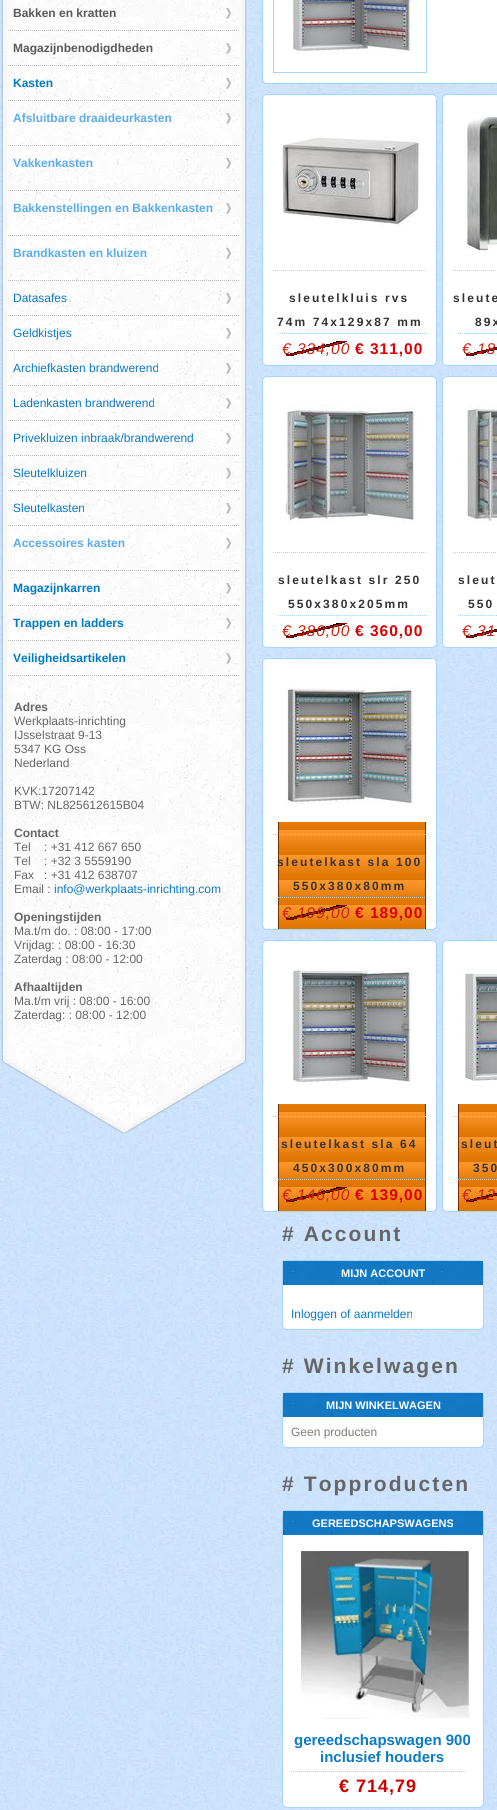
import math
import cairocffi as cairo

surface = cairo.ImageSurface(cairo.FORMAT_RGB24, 497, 1810)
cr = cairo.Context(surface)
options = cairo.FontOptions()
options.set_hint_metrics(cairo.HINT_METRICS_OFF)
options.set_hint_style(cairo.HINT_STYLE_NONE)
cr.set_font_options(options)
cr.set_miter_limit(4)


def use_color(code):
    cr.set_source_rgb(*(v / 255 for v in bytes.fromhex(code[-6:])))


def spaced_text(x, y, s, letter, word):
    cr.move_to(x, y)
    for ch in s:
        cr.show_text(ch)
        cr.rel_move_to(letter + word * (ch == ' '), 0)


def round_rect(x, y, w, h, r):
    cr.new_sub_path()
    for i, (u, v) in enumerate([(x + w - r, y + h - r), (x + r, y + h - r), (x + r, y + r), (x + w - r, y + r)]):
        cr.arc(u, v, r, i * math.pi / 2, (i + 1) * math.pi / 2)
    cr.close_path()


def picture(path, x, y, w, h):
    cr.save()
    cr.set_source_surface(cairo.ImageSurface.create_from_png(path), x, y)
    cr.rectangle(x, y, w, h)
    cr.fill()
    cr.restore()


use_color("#ffffff")
cr.paint()
picture("img1.png", 0, 0, 497, 1810)
picture("img2.png", 1, 0, 246, 1060)
picture("img3.png", 226, 8, 5, 11)
cr.new_path()
cr.move_to(8, 30.5)
cr.line_to(240, 30.5)
use_color("#bbbbbb")
cr.set_line_width(1)
cr.set_dash([1, 1])
cr.stroke()
cr.select_font_face("Liberation Sans", cairo.FONT_SLANT_NORMAL, cairo.FONT_WEIGHT_BOLD)
cr.set_font_size(12)
use_color("#595959")
cr.move_to(13, 17)
cr.show_text("Bakken en kratten")
picture("img4.png", 226, 43, 5, 11)
cr.new_path()
cr.move_to(8, 65.5)
cr.line_to(240, 65.5)
use_color("#bbbbbb")
cr.stroke()
use_color("#595959")
cr.move_to(13, 52)
cr.show_text("Magazijnbenodigdheden")
picture("img5.png", 226, 78, 5, 11)
cr.new_path()
cr.move_to(8, 100.5)
cr.line_to(240, 100.5)
use_color("#bbbbbb")
cr.stroke()
use_color("#007bc4")
cr.move_to(13, 87)
cr.show_text("Kasten")
picture("img6.png", 226, 113, 5, 11)
cr.new_path()
cr.move_to(8, 145.5)
cr.line_to(240, 145.5)
use_color("#bbbbbb")
cr.stroke()
use_color("#5badeb")
cr.move_to(13, 122)
cr.show_text("Afsluitbare draaideurkasten")
picture("img7.png", 226, 158, 5, 11)
cr.new_path()
cr.move_to(8, 190.5)
cr.line_to(240, 190.5)
use_color("#bbbbbb")
cr.stroke()
use_color("#5badeb")
cr.move_to(13, 167)
cr.show_text("Vakkenkasten")
picture("img8.png", 226, 203, 5, 11)
cr.new_path()
cr.move_to(8, 235.5)
cr.line_to(240, 235.5)
use_color("#bbbbbb")
cr.stroke()
use_color("#5badeb")
cr.move_to(13, 212)
cr.show_text("Bakkenstellingen en Bakkenkasten")
picture("img9.png", 226, 248, 5, 11)
cr.new_path()
cr.move_to(8, 280.5)
cr.line_to(240, 280.5)
use_color("#bbbbbb")
cr.stroke()
use_color("#5badeb")
cr.move_to(13, 257)
cr.show_text("Brandkasten en kluizen")
picture("img10.png", 226, 293, 5, 11)
cr.new_path()
cr.move_to(8, 315.5)
cr.line_to(240, 315.5)
use_color("#bbbbbb")
cr.stroke()
cr.select_font_face("Liberation Sans")
use_color("#0c7ac6")
cr.move_to(13, 302)
cr.show_text("Datasafes")
picture("img11.png", 226, 328, 5, 11)
cr.new_path()
cr.move_to(8, 350.5)
cr.line_to(240, 350.5)
use_color("#bbbbbb")
cr.stroke()
use_color("#0c7ac6")
cr.move_to(13, 337)
cr.show_text("Geldkistjes")
picture("img12.png", 226, 363, 5, 11)
cr.new_path()
cr.move_to(8, 385.5)
cr.line_to(240, 385.5)
use_color("#bbbbbb")
cr.stroke()
use_color("#0c7ac6")
cr.move_to(13, 372)
cr.show_text("Archiefkasten brandwerend")
picture("img13.png", 226, 398, 5, 11)
cr.new_path()
cr.move_to(8, 420.5)
cr.line_to(240, 420.5)
use_color("#bbbbbb")
cr.stroke()
use_color("#0c7ac6")
cr.move_to(13, 407)
cr.show_text("Ladenkasten brandwerend")
picture("img14.png", 226, 433, 5, 11)
cr.new_path()
cr.move_to(8, 455.5)
cr.line_to(240, 455.5)
use_color("#bbbbbb")
cr.stroke()
use_color("#0c7ac6")
cr.move_to(13, 442)
cr.show_text("Privekluizen inbraak/brandwerend")
picture("img15.png", 226, 468, 5, 11)
cr.new_path()
cr.move_to(8, 490.5)
cr.line_to(240, 490.5)
use_color("#bbbbbb")
cr.stroke()
use_color("#0c7ac6")
cr.move_to(13, 477)
cr.show_text("Sleutelkluizen")
picture("img16.png", 226, 503, 5, 11)
cr.new_path()
cr.move_to(8, 525.5)
cr.line_to(240, 525.5)
use_color("#bbbbbb")
cr.stroke()
use_color("#0c7ac6")
cr.move_to(13, 512)
cr.show_text("Sleutelkasten")
picture("img17.png", 226, 538, 5, 11)
cr.new_path()
cr.move_to(8, 570.5)
cr.line_to(240, 570.5)
use_color("#bbbbbb")
cr.stroke()
cr.select_font_face("Liberation Sans", cairo.FONT_SLANT_NORMAL, cairo.FONT_WEIGHT_BOLD)
use_color("#5badeb")
cr.move_to(13, 547)
cr.show_text("Accessoires kasten")
picture("img5.png", 226, 583, 5, 11)
cr.new_path()
cr.move_to(8, 605.5)
cr.line_to(240, 605.5)
use_color("#bbbbbb")
cr.stroke()
use_color("#007bc4")
cr.move_to(13, 592)
cr.show_text("Magazijnkarren")
picture("img6.png", 226, 618, 5, 11)
cr.new_path()
cr.move_to(8, 640.5)
cr.line_to(240, 640.5)
use_color("#bbbbbb")
cr.stroke()
use_color("#007bc4")
cr.move_to(13, 627)
cr.show_text("Trappen en ladders")
picture("img18.png", 226, 653, 5, 11)
cr.new_path()
cr.move_to(8, 675.5)
cr.line_to(240, 675.5)
use_color("#bbbbbb")
cr.stroke()
use_color("#007bc4")
cr.move_to(13, 662)
cr.show_text("Veiligheidsartikelen")
use_color("#666666")
cr.move_to(14, 711)
cr.show_text("Adres")
cr.select_font_face("Liberation Sans")
cr.move_to(14, 725)
cr.show_text("Werkplaats-inrichting")
cr.move_to(14, 739)
cr.show_text("IJsselstraat 9-13")
cr.move_to(14, 753)
cr.show_text("5347 KG Oss")
cr.move_to(14, 767)
cr.show_text("Nederland")
cr.move_to(14, 795)
cr.show_text("KVK:17207142")
cr.move_to(14, 809)
cr.show_text("BTW: NL825612615B04")
cr.select_font_face("Liberation Sans", cairo.FONT_SLANT_NORMAL, cairo.FONT_WEIGHT_BOLD)
cr.move_to(14, 837)
cr.show_text("Contact")
cr.select_font_face("Liberation Sans")
cr.move_to(14, 851)
cr.show_text("Tel    : +31 412 667 650")
cr.move_to(14, 865)
cr.show_text("Tel    : +32 3 5559190")
cr.move_to(14, 879)
cr.show_text("Fax   : +31 412 638707")
cr.move_to(14, 893)
cr.show_text("Email :")
use_color("#0c7ac6")
cr.move_to(54, 893)
cr.show_text("info@werkplaats-inrichting.com")
cr.select_font_face("Liberation Sans", cairo.FONT_SLANT_NORMAL, cairo.FONT_WEIGHT_BOLD)
use_color("#666666")
cr.move_to(14, 921)
cr.show_text("Openingstijden")
cr.select_font_face("Liberation Sans")
cr.move_to(14, 935)
cr.show_text("Ma.t/m do. : 08:00 - 17:00")
cr.move_to(14, 949)
cr.show_text("Vrijdag: : 08:00 - 16:30")
cr.move_to(14, 963)
cr.show_text("Zaterdag : 08:00 - 12:00")
cr.select_font_face("Liberation Sans", cairo.FONT_SLANT_NORMAL, cairo.FONT_WEIGHT_BOLD)
cr.move_to(14, 991)
cr.show_text("Afhaaltijden")
cr.select_font_face("Liberation Sans")
cr.move_to(14, 1005)
cr.show_text("Ma.t/m vrij : 08:00 - 16:00")
cr.move_to(14, 1019)
cr.show_text("Zaterdag: : 08:00 - 12:00")
picture("img19.png", 1, 1060, 246, 74)
use_color("#ffffff")
round_rect(262.5, -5.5, 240, 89, 4.5)
cr.fill_preserve()
use_color("#a5d5ff")
cr.set_dash([])
cr.stroke()
cr.rectangle(273.5, -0.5, 153, 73)
cr.stroke()
picture("img20.png", 292, 0, 127, 53)
use_color("#ffffff")
round_rect(262.5, 94.5, 174, 271, 4.5)
cr.fill_preserve()
use_color("#a5d5ff")
cr.stroke()
picture("img21.png", 282, 137, 137, 89)
cr.new_path()
cr.move_to(273, 270.5)
cr.line_to(426, 270.5)
cr.set_dash([1, 1])
cr.stroke()
cr.select_font_face("Liberation Sans", cairo.FONT_SLANT_NORMAL, cairo.FONT_WEIGHT_BOLD)
use_color("#333333")
spaced_text(289, 302, "sleutelkluis rvs", 2.1, 0)
spaced_text(277, 326, "74m 74x129x87 mm", 2.1, 0)
cr.new_path()
cr.move_to(278, 333.5)
cr.line_to(428, 333.5)
use_color("#a5d5ff")
cr.stroke()
picture("img22.png", 286, 341, 61, 15)
cr.select_font_face("Liberation Sans", cairo.FONT_SLANT_ITALIC)
cr.set_font_size(15.5)
use_color("#d02009")
spaced_text(282, 354, "€ 334,00", 1, 0)
cr.select_font_face("Liberation Sans", cairo.FONT_SLANT_NORMAL, cairo.FONT_WEIGHT_BOLD)
use_color("#dd0000")
spaced_text(355, 354, "€ 311,00", 1, 0)
use_color("#ffffff")
round_rect(442.5, 94.5, 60, 271, 4.5)
cr.fill_preserve()
use_color("#a5d5ff")
cr.set_dash([])
cr.stroke()
picture("img23.png", 463, 115, 34, 136)
cr.new_path()
cr.move_to(453, 270.5)
cr.line_to(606, 270.5)
cr.set_dash([1, 1])
cr.stroke()
cr.set_font_size(12)
use_color("#333333")
spaced_text(453, 302, "sleute", 2.1, 0)
spaced_text(475, 326, "89x", 2.1, 0)
cr.new_path()
cr.move_to(458, 333.5)
cr.line_to(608, 333.5)
use_color("#a5d5ff")
cr.stroke()
picture("img24.png", 466, 347, 31, 9)
cr.select_font_face("Liberation Sans", cairo.FONT_SLANT_ITALIC)
cr.set_font_size(15.5)
use_color("#d02009")
spaced_text(462, 354, "€ 18", 1, 0)
use_color("#ffffff")
round_rect(262.5, 376.5, 174, 271, 4.5)
cr.fill_preserve()
use_color("#a5d5ff")
cr.set_dash([])
cr.stroke()
picture("img25.png", 285, 404, 134, 120)
cr.new_path()
cr.move_to(273, 552.5)
cr.line_to(426, 552.5)
cr.set_dash([1, 1])
cr.stroke()
cr.select_font_face("Liberation Sans", cairo.FONT_SLANT_NORMAL, cairo.FONT_WEIGHT_BOLD)
cr.set_font_size(12)
use_color("#333333")
spaced_text(278, 584, "sleutelkast slr 250", 2.1, 0)
spaced_text(288, 608, "550x380x205mm", 2.1, 0)
cr.new_path()
cr.move_to(278, 615.5)
cr.line_to(428, 615.5)
use_color("#a5d5ff")
cr.stroke()
picture("img22.png", 286, 623, 61, 15)
cr.select_font_face("Liberation Sans", cairo.FONT_SLANT_ITALIC)
cr.set_font_size(15.5)
use_color("#d02009")
spaced_text(282, 636, "€ 380,00", 1, 0)
cr.select_font_face("Liberation Sans", cairo.FONT_SLANT_NORMAL, cairo.FONT_WEIGHT_BOLD)
use_color("#dd0000")
spaced_text(355, 636, "€ 360,00", 1, 0)
use_color("#ffffff")
round_rect(442.5, 376.5, 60, 271, 4.5)
cr.fill_preserve()
use_color("#a5d5ff")
cr.set_dash([])
cr.stroke()
picture("img26.png", 463, 404, 34, 120)
cr.new_path()
cr.move_to(453, 552.5)
cr.line_to(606, 552.5)
cr.set_dash([1, 1])
cr.stroke()
cr.set_font_size(12)
use_color("#333333")
spaced_text(458, 584, "sleut", 2.1, 0)
spaced_text(468, 608, "550", 2.1, 0)
cr.new_path()
cr.move_to(458, 615.5)
cr.line_to(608, 615.5)
use_color("#a5d5ff")
cr.stroke()
picture("img24.png", 466, 629, 31, 9)
cr.select_font_face("Liberation Sans", cairo.FONT_SLANT_ITALIC)
cr.set_font_size(15.5)
use_color("#d02009")
spaced_text(462, 636, "€ 31", 1, 0)
use_color("#ffffff")
round_rect(262.5, 658.5, 174, 271, 4.5)
cr.fill_preserve()
use_color("#a5d5ff")
cr.set_dash([])
cr.stroke()
picture("img27.png", 279, 822, 146, 107)
use_color("#752f00")
cr.new_path()
cr.move_to(278, 679)
cr.line_to(278, 929)
cr.line_to(279, 929)
cr.line_to(279, 680)
cr.line_to(425, 680)
cr.line_to(425, 929)
cr.line_to(426, 929)
cr.line_to(426, 679)
cr.close_path()
cr.fill()
use_color("#ffffff")
cr.rectangle(278, 679, 148, 143)
cr.fill()
picture("img28.png", 283, 686, 136, 120)
cr.new_path()
cr.move_to(273, 834.5)
cr.line_to(426, 834.5)
use_color("#a5d5ff")
cr.set_dash([1, 1])
cr.stroke()
cr.select_font_face("Liberation Sans", cairo.FONT_SLANT_NORMAL, cairo.FONT_WEIGHT_BOLD)
cr.set_font_size(12)
use_color("#333333")
spaced_text(277, 866, "sleutelkast sla 100", 2.1, 0)
spaced_text(293, 890, "550x380x80mm", 2.1, 0)
cr.new_path()
cr.move_to(278, 897.5)
cr.line_to(428, 897.5)
use_color("#a5d5ff")
cr.stroke()
picture("img29.png", 286, 905, 61, 15)
cr.select_font_face("Liberation Sans", cairo.FONT_SLANT_ITALIC)
cr.set_font_size(15.5)
use_color("#d02009")
spaced_text(282, 918, "€ 199,00", 1, 0)
cr.select_font_face("Liberation Sans", cairo.FONT_SLANT_NORMAL, cairo.FONT_WEIGHT_BOLD)
use_color("#dd0000")
spaced_text(355, 918, "€ 189,00", 1, 0)
use_color("#ffffff")
round_rect(262.5, 940.5, 174, 271, 4.5)
cr.fill_preserve()
use_color("#a5d5ff")
cr.set_dash([])
cr.stroke()
picture("img27.png", 279, 1104, 146, 107)
use_color("#752f00")
cr.new_path()
cr.move_to(278, 961)
cr.line_to(278, 1211)
cr.line_to(279, 1211)
cr.line_to(279, 962)
cr.line_to(425, 962)
cr.line_to(425, 1211)
cr.line_to(426, 1211)
cr.line_to(426, 961)
cr.close_path()
cr.fill()
use_color("#ffffff")
cr.rectangle(278, 961, 148, 143)
cr.fill()
picture("img30.png", 292, 968, 127, 116)
cr.new_path()
cr.move_to(273, 1116.5)
cr.line_to(426, 1116.5)
use_color("#a5d5ff")
cr.set_dash([1, 1])
cr.stroke()
cr.set_font_size(12)
use_color("#333333")
spaced_text(281, 1148, "sleutelkast sla 64", 2.1, 0)
spaced_text(293, 1172, "450x300x80mm", 2.1, 0)
cr.new_path()
cr.move_to(278, 1179.5)
cr.line_to(428, 1179.5)
use_color("#a5d5ff")
cr.stroke()
picture("img29.png", 286, 1187, 61, 15)
cr.select_font_face("Liberation Sans", cairo.FONT_SLANT_ITALIC)
cr.set_font_size(15.5)
use_color("#d02009")
spaced_text(282, 1200, "€ 146,00", 1, 0)
cr.select_font_face("Liberation Sans", cairo.FONT_SLANT_NORMAL, cairo.FONT_WEIGHT_BOLD)
use_color("#dd0000")
spaced_text(355, 1200, "€ 139,00", 1, 0)
use_color("#ffffff")
round_rect(442.5, 940.5, 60, 271, 4.5)
cr.fill_preserve()
use_color("#a5d5ff")
cr.set_dash([])
cr.stroke()
picture("img31.png", 459, 1104, 38, 107)
use_color("#752f00")
cr.new_path()
cr.move_to(458, 961)
cr.line_to(458, 1211)
cr.line_to(459, 1211)
cr.line_to(459, 962)
cr.line_to(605, 962)
cr.line_to(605, 1211)
cr.line_to(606, 1211)
cr.line_to(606, 961)
cr.close_path()
cr.fill()
use_color("#ffffff")
cr.rectangle(458, 961, 39, 143)
cr.fill()
picture("img32.png", 463, 968, 34, 118)
cr.new_path()
cr.move_to(453, 1116.5)
cr.line_to(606, 1116.5)
use_color("#a5d5ff")
cr.set_dash([1, 1])
cr.stroke()
cr.set_font_size(12)
use_color("#333333")
spaced_text(461, 1148, "sleut", 2.1, 0)
spaced_text(473, 1172, "350", 2.1, 0)
cr.new_path()
cr.move_to(458, 1179.5)
cr.line_to(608, 1179.5)
use_color("#a5d5ff")
cr.stroke()
picture("img33.png", 466, 1193, 31, 9)
cr.select_font_face("Liberation Sans", cairo.FONT_SLANT_ITALIC)
cr.set_font_size(15.5)
use_color("#d02009")
spaced_text(462, 1200, "€ 12", 1, 0)
cr.select_font_face("Liberation Sans", cairo.FONT_SLANT_NORMAL, cairo.FONT_WEIGHT_BOLD)
cr.set_font_size(21)
use_color("#666666")
spaced_text(282, 1241, "# Account", 2.1, 0)
use_color("#ffffff")
round_rect(282.5, 1260.5, 201, 69, 4.5)
cr.fill_preserve()
use_color("#a5d5ff")
cr.set_dash([])
cr.stroke()
picture("img34.png", 283, 1261, 200, 24)
cr.set_font_size(11)
use_color("#ffffff")
cr.move_to(341, 1277)
cr.show_text("MIJN ACCOUNT")
cr.select_font_face("Liberation Sans")
cr.set_font_size(12)
use_color("#0c7ac6")
cr.move_to(291, 1318)
cr.show_text("Inloggen of aanmelden")
cr.select_font_face("Liberation Sans", cairo.FONT_SLANT_NORMAL, cairo.FONT_WEIGHT_BOLD)
cr.set_font_size(21)
use_color("#666666")
spaced_text(282, 1373, "# Winkelwagen", 2.1, 0)
use_color("#ffffff")
round_rect(282.5, 1392.5, 201, 55, 4.5)
cr.fill_preserve()
use_color("#a5d5ff")
cr.stroke()
picture("img34.png", 283, 1393, 200, 24)
cr.set_font_size(11)
use_color("#ffffff")
cr.move_to(326, 1409)
cr.show_text("MIJN WINKELWAGEN")
cr.select_font_face("Liberation Sans")
cr.set_font_size(12)
use_color("#817b77")
cr.move_to(291, 1436)
cr.show_text("Geen producten")
cr.select_font_face("Liberation Sans", cairo.FONT_SLANT_NORMAL, cairo.FONT_WEIGHT_BOLD)
cr.set_font_size(21)
use_color("#666666")
spaced_text(282, 1491, "# Topproducten", 2.1, 0)
use_color("#ffffff")
round_rect(282.5, 1510.5, 201, 297, 4.5)
cr.fill_preserve()
use_color("#a5d5ff")
cr.stroke()
picture("img34.png", 283, 1511, 200, 24)
cr.set_font_size(11)
use_color("#ffffff")
cr.move_to(312, 1527)
cr.show_text("GEREEDSCHAPSWAGENS")
picture("img35.png", 301, 1551, 168, 168)
cr.set_font_size(15)
use_color("#0c7ac6")
cr.move_to(294, 1745)
cr.show_text("gereedschapswagen 900")
cr.move_to(320, 1762)
cr.show_text("inclusief houders")
cr.new_path()
cr.move_to(291, 1771.5)
cr.line_to(466, 1771.5)
use_color("#a5d5ff")
cr.set_dash([1, 1])
cr.stroke()
cr.set_font_size(18)
use_color("#cc0000")
spaced_text(339, 1792, "€ 714,79", 1, 0)
surface.write_to_png("result.png")
